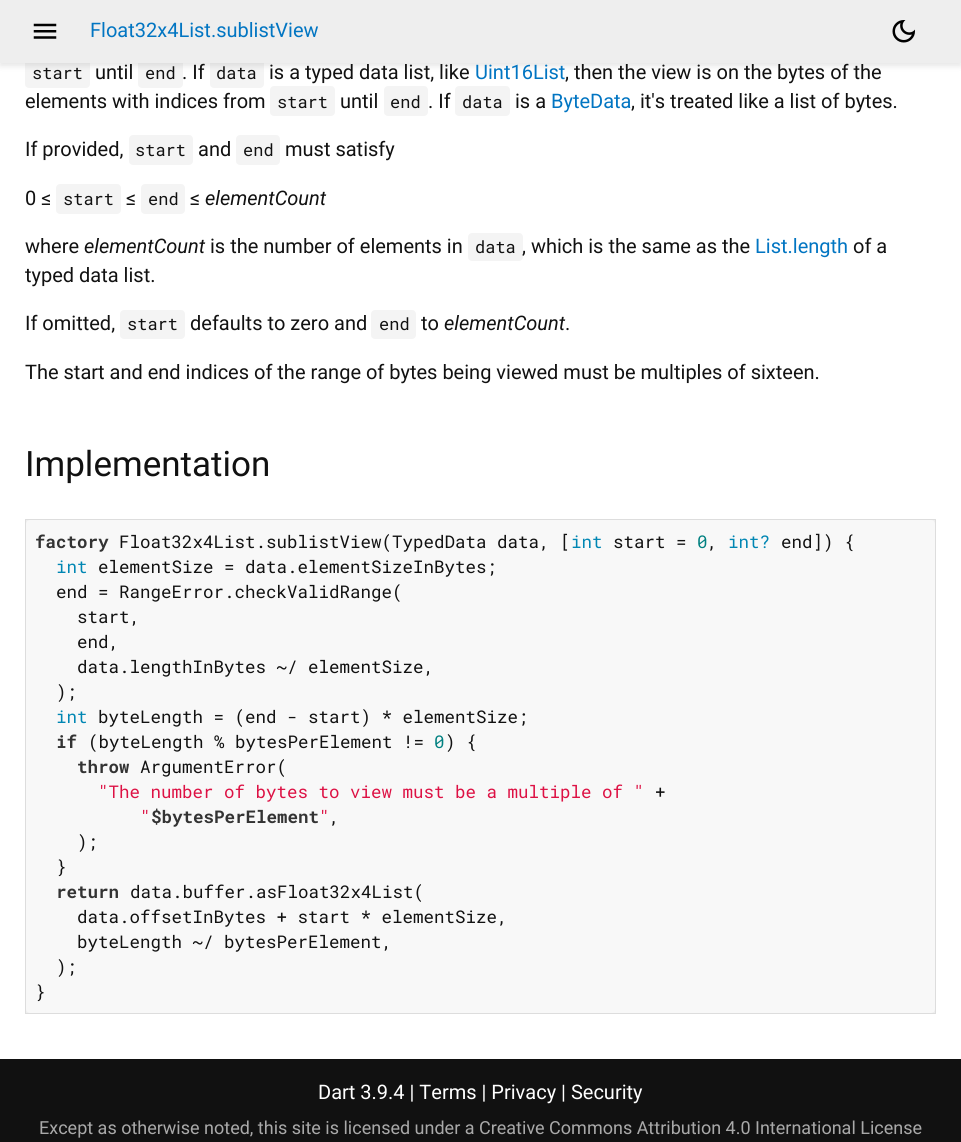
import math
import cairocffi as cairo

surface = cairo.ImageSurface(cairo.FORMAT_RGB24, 961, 1142)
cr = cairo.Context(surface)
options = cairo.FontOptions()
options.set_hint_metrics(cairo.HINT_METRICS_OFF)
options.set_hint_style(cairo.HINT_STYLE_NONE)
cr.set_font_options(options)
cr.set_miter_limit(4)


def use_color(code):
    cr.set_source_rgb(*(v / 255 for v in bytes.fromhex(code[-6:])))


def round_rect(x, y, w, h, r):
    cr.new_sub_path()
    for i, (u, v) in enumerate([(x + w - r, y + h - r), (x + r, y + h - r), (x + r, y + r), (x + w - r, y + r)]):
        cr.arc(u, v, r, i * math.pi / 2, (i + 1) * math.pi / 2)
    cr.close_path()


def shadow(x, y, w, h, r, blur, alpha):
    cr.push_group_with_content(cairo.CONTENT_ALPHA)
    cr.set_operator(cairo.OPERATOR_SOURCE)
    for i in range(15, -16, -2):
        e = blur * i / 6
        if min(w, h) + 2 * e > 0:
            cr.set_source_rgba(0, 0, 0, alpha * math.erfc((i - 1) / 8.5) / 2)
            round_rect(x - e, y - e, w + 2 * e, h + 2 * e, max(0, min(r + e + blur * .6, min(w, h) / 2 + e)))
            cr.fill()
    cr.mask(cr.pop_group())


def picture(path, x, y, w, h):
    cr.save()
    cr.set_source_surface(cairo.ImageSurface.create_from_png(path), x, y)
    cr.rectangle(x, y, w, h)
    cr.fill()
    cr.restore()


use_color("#ffffff")
cr.paint()
use_color("#f4f4f4")
round_rect(25, 59, 65, 29, 4)
cr.fill()
round_rect(138, 59, 45, 29, 4)
cr.fill()
round_rect(210, 59, 54, 29, 4)
cr.fill()
use_color("#000000")
shadow(0, 4, 961, 62, 0, 3, 0.1)
use_color("#eeeeee")
cr.rectangle(0, 0, 961, 63)
cr.fill()
picture("img1.png", 33, 23, 24, 16)
cr.select_font_face("Roboto")
cr.set_font_size(20)
use_color("#0175c2")
cr.move_to(90, 37)
cr.show_text("Float32x4List.sublistView")
picture("img2.png", 892, 20, 23, 23)
cr.select_font_face("Roboto Mono")
cr.set_font_size(17)
use_color("#111111")
cr.move_to(32, 79)
cr.show_text("start")
cr.select_font_face("Roboto")
cr.set_font_size(20)
cr.move_to(95, 79)
cr.show_text("until")
cr.select_font_face("Roboto Mono")
cr.set_font_size(17)
cr.move_to(145, 79)
cr.show_text("end")
cr.select_font_face("Roboto")
cr.set_font_size(20)
cr.move_to(182, 79)
cr.show_text(". If")
cr.select_font_face("Roboto Mono")
cr.set_font_size(17)
cr.move_to(216, 79)
cr.show_text("data")
cr.select_font_face("Roboto")
cr.set_font_size(20)
cr.move_to(269, 79)
cr.show_text("is a typed data list, like")
use_color("#0175c2")
cr.move_to(475, 79)
cr.show_text("Uint16List")
use_color("#111111")
cr.move_to(565, 79)
cr.show_text(", then the view is on the bytes of the")
cr.move_to(25, 108)
cr.show_text("elements with indices from")
use_color("#f4f4f4")
round_rect(270, 86, 65, 30, 4)
cr.fill()
cr.select_font_face("Roboto Mono")
cr.set_font_size(17)
use_color("#111111")
cr.move_to(277, 108)
cr.show_text("start")
cr.select_font_face("Roboto")
cr.set_font_size(20)
cr.move_to(340, 108)
cr.show_text("until")
use_color("#f4f4f4")
round_rect(384, 86, 44, 30, 4)
cr.fill()
cr.select_font_face("Roboto Mono")
cr.set_font_size(17)
use_color("#111111")
cr.move_to(390, 108)
cr.show_text("end")
cr.select_font_face("Roboto")
cr.set_font_size(20)
cr.move_to(428, 108)
cr.show_text(". If")
use_color("#f4f4f4")
round_rect(455, 86, 55, 30, 4)
cr.fill()
cr.select_font_face("Roboto Mono")
cr.set_font_size(17)
use_color("#111111")
cr.move_to(462, 108)
cr.show_text("data")
cr.select_font_face("Roboto")
cr.set_font_size(20)
cr.move_to(515, 108)
cr.show_text("is a")
use_color("#0175c2")
cr.move_to(551, 108)
cr.show_text("ByteData")
use_color("#111111")
cr.move_to(631, 108)
cr.show_text(", it's treated like a list of bytes.")
cr.move_to(25, 156)
cr.show_text("If provided,")
use_color("#f4f4f4")
round_rect(129, 135, 64, 30, 4)
cr.fill()
cr.select_font_face("Roboto Mono")
cr.set_font_size(17)
use_color("#111111")
cr.move_to(135, 156)
cr.show_text("start")
cr.select_font_face("Roboto")
cr.set_font_size(20)
cr.move_to(198, 156)
cr.show_text("and")
use_color("#f4f4f4")
round_rect(236, 135, 44, 30, 4)
cr.fill()
cr.select_font_face("Roboto Mono")
cr.set_font_size(17)
use_color("#111111")
cr.move_to(243, 156)
cr.show_text("end")
cr.select_font_face("Roboto")
cr.set_font_size(20)
cr.move_to(285, 156)
cr.show_text("must satisfy")
cr.move_to(25, 205)
cr.show_text("0 ≤")
use_color("#f4f4f4")
round_rect(56, 184, 65, 30, 4)
cr.fill()
cr.select_font_face("Roboto Mono")
cr.set_font_size(17)
use_color("#111111")
cr.move_to(63, 205)
cr.show_text("start")
cr.select_font_face("Roboto")
cr.set_font_size(20)
cr.move_to(126, 205)
cr.show_text("≤")
use_color("#f4f4f4")
round_rect(141, 184, 44, 30, 4)
cr.fill()
cr.select_font_face("Roboto Mono")
cr.set_font_size(17)
use_color("#111111")
cr.move_to(148, 205)
cr.show_text("end")
cr.select_font_face("Roboto")
cr.set_font_size(20)
cr.move_to(190, 205)
cr.show_text("≤")
cr.select_font_face("Roboto", cairo.FONT_SLANT_ITALIC)
cr.move_to(205, 205)
cr.show_text("elementCount")
cr.select_font_face("Roboto")
cr.move_to(25, 253)
cr.show_text("where")
cr.select_font_face("Roboto", cairo.FONT_SLANT_ITALIC)
cr.move_to(84, 253)
cr.show_text("elementCount")
cr.select_font_face("Roboto")
cr.move_to(210, 253)
cr.show_text("is the number of elements in")
use_color("#f4f4f4")
round_rect(468, 233, 55, 28, 4)
cr.fill()
cr.select_font_face("Roboto Mono")
cr.set_font_size(17)
use_color("#111111")
cr.move_to(475, 253)
cr.show_text("data")
cr.select_font_face("Roboto")
cr.set_font_size(20)
cr.move_to(522, 253)
cr.show_text(", which is the same as the")
use_color("#0175c2")
cr.move_to(755, 253)
cr.show_text("List.length")
use_color("#111111")
cr.move_to(853, 253)
cr.show_text("of a")
cr.move_to(25, 282)
cr.show_text("typed data list.")
cr.move_to(25, 330)
cr.show_text("If omitted,")
use_color("#f4f4f4")
round_rect(120, 310, 65, 29, 4)
cr.fill()
cr.select_font_face("Roboto Mono")
cr.set_font_size(17)
use_color("#111111")
cr.move_to(127, 330)
cr.show_text("start")
cr.select_font_face("Roboto")
cr.set_font_size(20)
cr.move_to(190, 330)
cr.show_text("defaults to zero and")
use_color("#f4f4f4")
round_rect(371, 310, 45, 29, 4)
cr.fill()
cr.select_font_face("Roboto Mono")
cr.set_font_size(17)
use_color("#111111")
cr.move_to(379, 330)
cr.show_text("end")
cr.select_font_face("Roboto")
cr.set_font_size(20)
cr.move_to(421, 330)
cr.show_text("to")
cr.select_font_face("Roboto", cairo.FONT_SLANT_ITALIC)
cr.move_to(444, 330)
cr.show_text("elementCount")
cr.select_font_face("Roboto")
cr.move_to(565, 330)
cr.show_text(".")
cr.move_to(25, 379)
cr.show_text("The start and end indices of the range of bytes being viewed must be multiples of sixteen.")
cr.set_font_size(35)
cr.move_to(25, 476)
cr.show_text("Implementation")
use_color("#eeeeee")
cr.rectangle(25.5, 519.5, 910, 494)
cr.fill_preserve()
use_color("#dddddd")
cr.set_line_width(1)
cr.stroke()
use_color("#f8f8f8")
round_rect(26, 520, 909, 493, 4)
cr.fill()
cr.select_font_face("Roboto Mono", cairo.FONT_SLANT_NORMAL, cairo.FONT_WEIGHT_BOLD)
cr.set_font_size(17.5)
use_color("#333333")
cr.move_to(35, 548)
cr.show_text("factory")
cr.select_font_face("Roboto Mono")
use_color("#111111")
cr.move_to(119, 548)
cr.show_text("Float32x4List.sublistView(TypedData data, [")
use_color("#0086b3")
cr.move_to(571, 548)
cr.show_text("int")
use_color("#111111")
cr.move_to(613, 548)
cr.show_text("start =")
use_color("#008080")
cr.move_to(697, 548)
cr.show_text("0")
use_color("#111111")
cr.move_to(707, 548)
cr.show_text(",")
use_color("#0086b3")
cr.move_to(728, 548)
cr.show_text("int?")
use_color("#111111")
cr.move_to(781, 548)
cr.show_text("end]) {")
use_color("#0086b3")
cr.move_to(56, 573)
cr.show_text("int")
use_color("#111111")
cr.move_to(98, 573)
cr.show_text("elementSize = data.elementSizeInBytes;")
cr.move_to(56, 598)
cr.show_text("end = RangeError.checkValidRange(")
cr.move_to(77, 623)
cr.show_text("start,")
cr.move_to(77, 648)
cr.show_text("end,")
cr.move_to(77, 673)
cr.show_text("data.lengthInBytes ~/ elementSize,")
cr.move_to(56, 698)
cr.show_text(");")
use_color("#0086b3")
cr.move_to(56, 723)
cr.show_text("int")
use_color("#111111")
cr.move_to(98, 723)
cr.show_text("byteLength = (end - start) * elementSize;")
cr.select_font_face("Roboto Mono", cairo.FONT_SLANT_NORMAL, cairo.FONT_WEIGHT_BOLD)
use_color("#333333")
cr.move_to(56, 748)
cr.show_text("if")
cr.select_font_face("Roboto Mono")
use_color("#111111")
cr.move_to(88, 748)
cr.show_text("(byteLength % bytesPerElement !=")
use_color("#008080")
cr.move_to(434, 748)
cr.show_text("0")
use_color("#111111")
cr.move_to(445, 748)
cr.show_text(") {")
cr.select_font_face("Roboto Mono", cairo.FONT_SLANT_NORMAL, cairo.FONT_WEIGHT_BOLD)
use_color("#333333")
cr.move_to(77, 773)
cr.show_text("throw")
cr.select_font_face("Roboto Mono")
use_color("#111111")
cr.move_to(140, 773)
cr.show_text("ArgumentError(")
use_color("#dd1144")
cr.move_to(98, 798)
cr.show_text("\"The number of bytes to view must be a multiple of \"")
use_color("#111111")
cr.move_to(655, 798)
cr.show_text("+")
use_color("#dd1144")
cr.move_to(140, 823)
cr.show_text("\"")
cr.select_font_face("Roboto Mono", cairo.FONT_SLANT_NORMAL, cairo.FONT_WEIGHT_BOLD)
use_color("#333333")
cr.move_to(151, 823)
cr.show_text("$bytesPerElement")
cr.select_font_face("Roboto Mono")
use_color("#dd1144")
cr.move_to(319, 823)
cr.show_text("\"")
use_color("#111111")
cr.move_to(329, 823)
cr.show_text(",")
cr.move_to(77, 848)
cr.show_text(");")
cr.move_to(56, 873)
cr.show_text("}")
cr.select_font_face("Roboto Mono", cairo.FONT_SLANT_NORMAL, cairo.FONT_WEIGHT_BOLD)
use_color("#333333")
cr.move_to(56, 898)
cr.show_text("return")
cr.select_font_face("Roboto Mono")
use_color("#111111")
cr.move_to(130, 898)
cr.show_text("data.buffer.asFloat32x4List(")
cr.move_to(77, 923)
cr.show_text("data.offsetInBytes + start * elementSize,")
cr.move_to(77, 948)
cr.show_text("byteLength ~/ bytesPerElement,")
cr.move_to(56, 973)
cr.show_text(");")
cr.move_to(35, 998)
cr.show_text("}")
cr.rectangle(0, 1059, 961, 83)
cr.fill()
cr.select_font_face("Roboto")
cr.set_font_size(20)
use_color("#ffffff")
cr.move_to(318, 1099)
cr.show_text("Dart 3.9.4 | Terms | Privacy | Security")
cr.set_font_size(18)
use_color("#a9a9a9")
cr.move_to(39, 1134)
cr.show_text("Except as otherwise noted, this site is licensed under a Creative Commons Attribution 4.0 International License")
surface.write_to_png("result.png")
